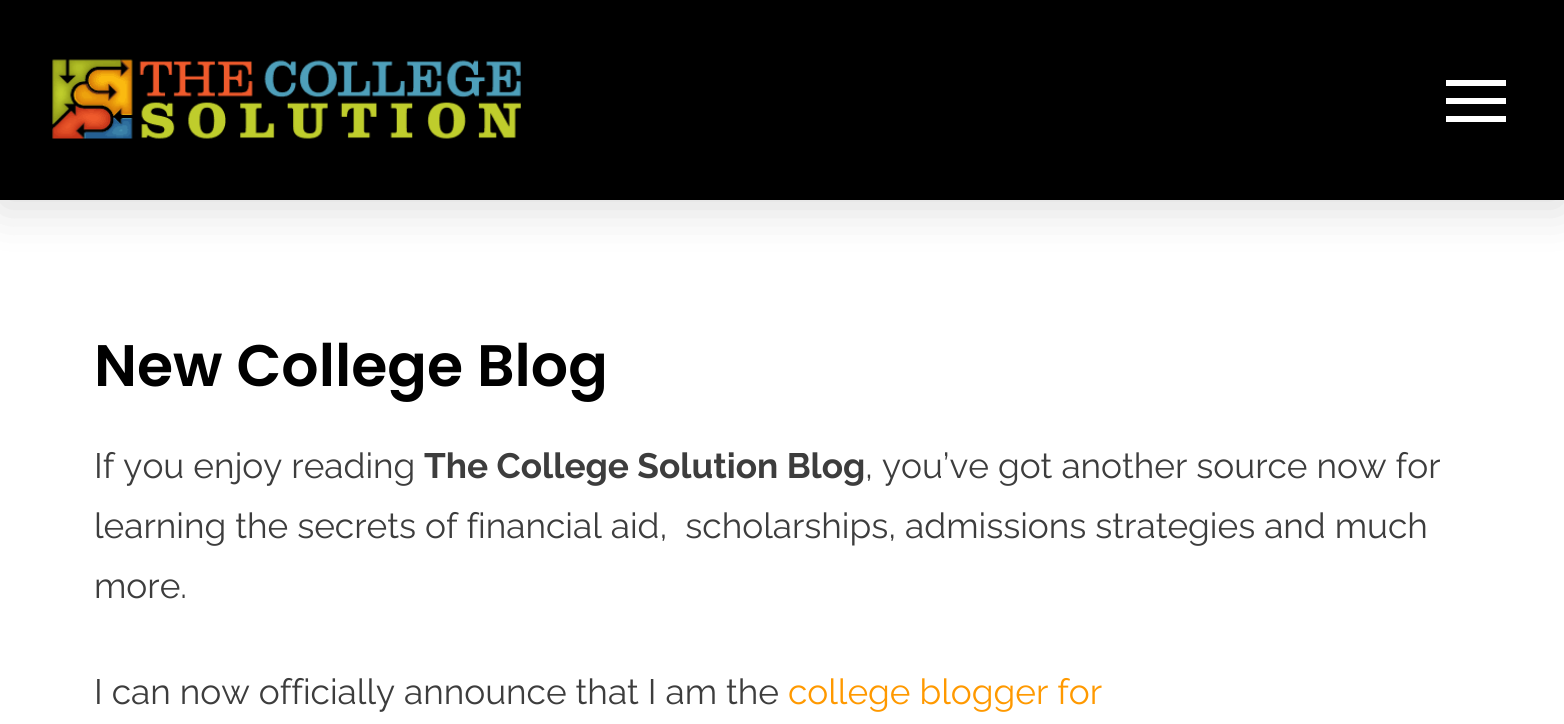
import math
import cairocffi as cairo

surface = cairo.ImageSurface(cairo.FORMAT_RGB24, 1564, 724)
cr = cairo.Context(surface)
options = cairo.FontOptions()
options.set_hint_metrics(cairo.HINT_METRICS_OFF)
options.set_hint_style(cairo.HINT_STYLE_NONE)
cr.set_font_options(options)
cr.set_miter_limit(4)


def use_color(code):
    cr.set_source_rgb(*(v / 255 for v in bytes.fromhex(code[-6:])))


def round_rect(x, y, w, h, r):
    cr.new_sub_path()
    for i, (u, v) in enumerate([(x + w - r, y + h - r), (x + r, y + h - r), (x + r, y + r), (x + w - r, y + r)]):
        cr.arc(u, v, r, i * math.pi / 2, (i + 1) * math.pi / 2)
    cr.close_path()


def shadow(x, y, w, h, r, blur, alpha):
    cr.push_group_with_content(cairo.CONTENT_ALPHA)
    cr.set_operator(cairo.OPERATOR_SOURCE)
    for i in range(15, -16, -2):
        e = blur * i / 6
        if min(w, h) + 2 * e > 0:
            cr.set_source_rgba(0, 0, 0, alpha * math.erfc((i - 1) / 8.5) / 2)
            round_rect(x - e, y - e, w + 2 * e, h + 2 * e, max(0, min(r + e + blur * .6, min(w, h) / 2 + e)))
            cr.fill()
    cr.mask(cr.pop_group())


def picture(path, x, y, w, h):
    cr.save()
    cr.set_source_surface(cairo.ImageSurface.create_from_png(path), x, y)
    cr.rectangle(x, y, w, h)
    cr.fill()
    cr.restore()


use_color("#ffffff")
cr.paint()
use_color("#000000")
shadow(0, 6, 1564, 200, 0, 25, 0.15)
use_color("#000000")
cr.rectangle(0, 0, 1564, 200)
cr.fill()
picture("img1.png", 52, 59, 469, 80)
use_color("#ffffff")
cr.rectangle(1446, 80, 60, 6)
cr.fill()
cr.rectangle(1446, 98, 60, 6)
cr.fill()
cr.rectangle(1446, 116, 60, 6)
cr.fill()
cr.select_font_face("Poppins SemiBold")
cr.set_font_size(58.5)
use_color("#000000")
cr.move_to(94, 386)
cr.show_text("New College Blog")
cr.select_font_face("Raleway")
cr.set_font_size(35.2)
use_color("#3d3d3d")
cr.move_to(94, 478)
cr.show_text("If you enjoy reading")
cr.select_font_face("Raleway", cairo.FONT_SLANT_NORMAL, cairo.FONT_WEIGHT_BOLD)
cr.move_to(424, 478)
cr.show_text("The College Solution Blog")
cr.select_font_face("Raleway")
cr.move_to(865, 478)
cr.show_text(", you’ve got another source now for")
cr.move_to(94, 538)
cr.show_text("learning the secrets of financial aid,  scholarships, admissions strategies and much")
cr.move_to(94, 598)
cr.show_text("more.")
cr.move_to(94, 704)
cr.show_text("I can now officially announce that I am the")
use_color("#ff9900")
cr.move_to(788, 704)
cr.show_text("college blogger for")
surface.write_to_png("result.png")
